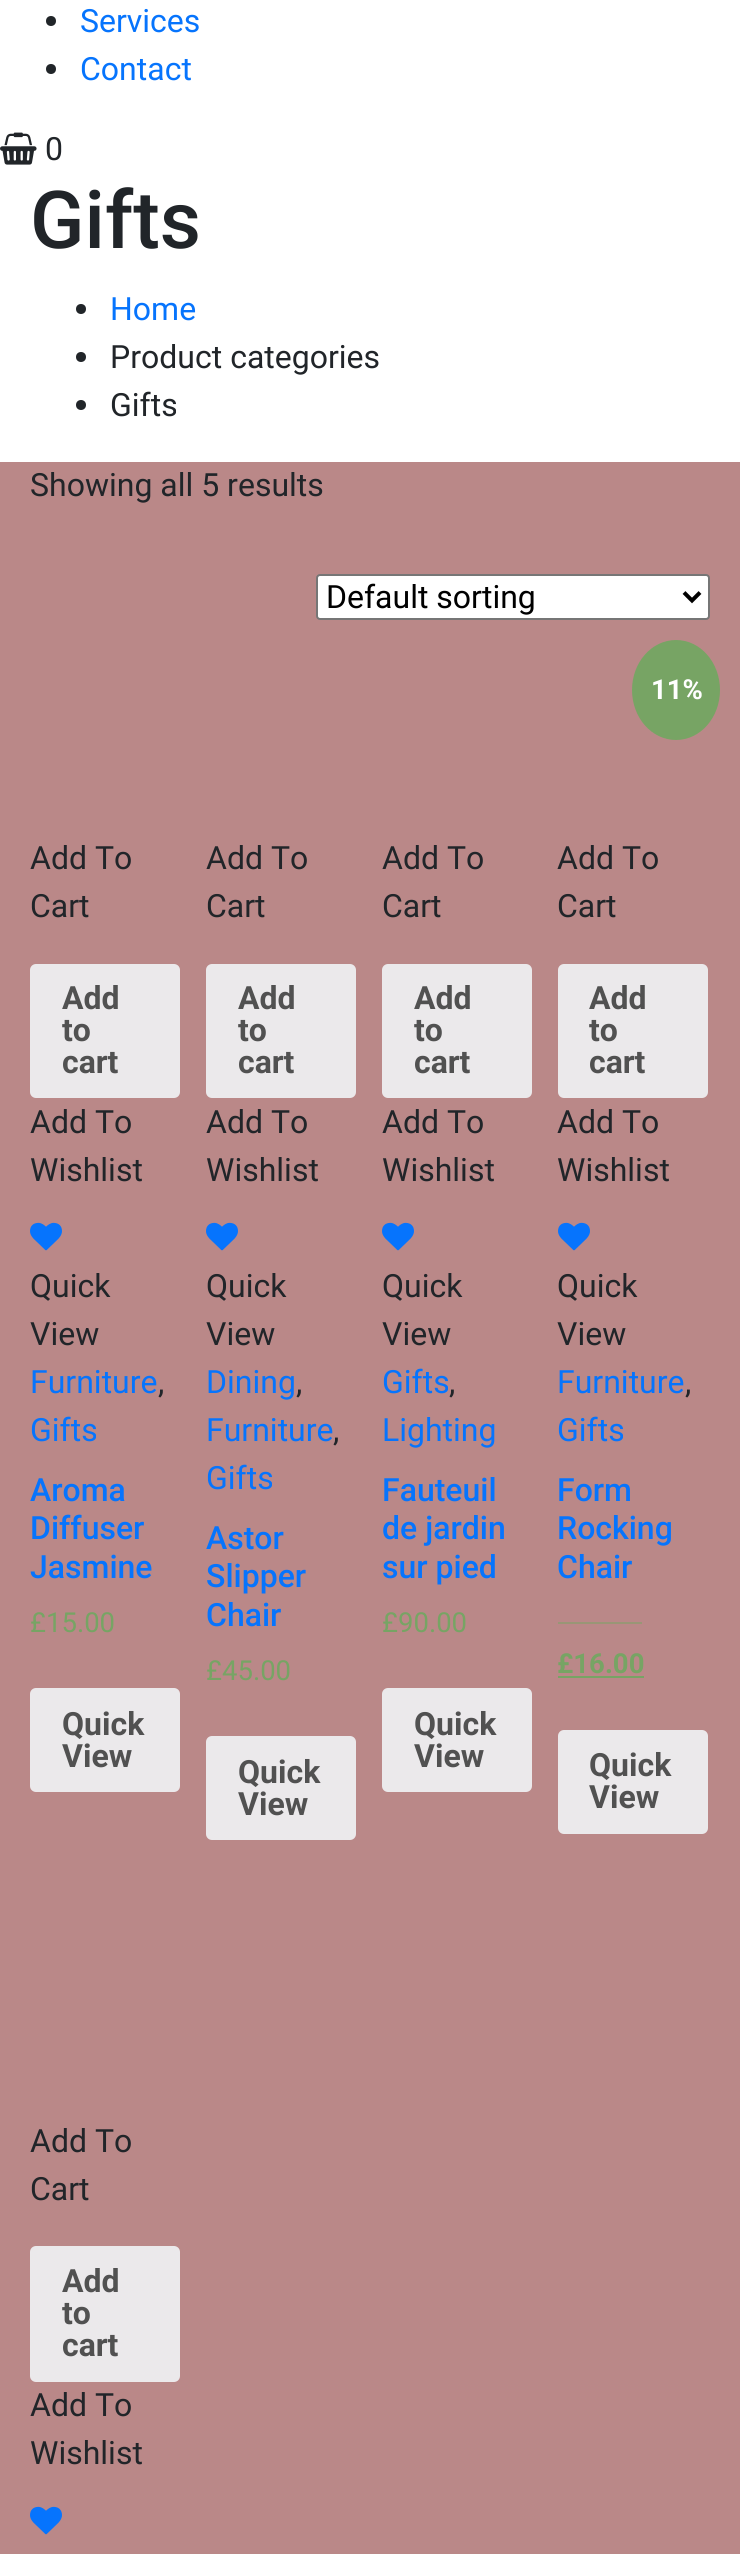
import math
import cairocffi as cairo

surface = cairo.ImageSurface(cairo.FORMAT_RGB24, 740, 2554)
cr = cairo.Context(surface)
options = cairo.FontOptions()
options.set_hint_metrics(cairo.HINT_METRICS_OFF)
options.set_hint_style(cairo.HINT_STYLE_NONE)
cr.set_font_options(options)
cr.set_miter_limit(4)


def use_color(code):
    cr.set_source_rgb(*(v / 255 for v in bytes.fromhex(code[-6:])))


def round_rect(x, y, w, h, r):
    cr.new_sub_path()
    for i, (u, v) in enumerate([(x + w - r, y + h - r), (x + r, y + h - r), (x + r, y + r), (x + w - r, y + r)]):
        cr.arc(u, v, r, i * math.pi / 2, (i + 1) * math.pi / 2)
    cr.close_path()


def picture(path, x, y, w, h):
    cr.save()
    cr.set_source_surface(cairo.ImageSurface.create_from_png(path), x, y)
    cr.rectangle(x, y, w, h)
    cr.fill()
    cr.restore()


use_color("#ffffff")
cr.paint()
use_color("#212529")
cr.arc(51, 21, 5, 0, 2 * math.pi)
cr.fill()
cr.select_font_face("Roboto")
cr.set_font_size(32)
use_color("#0674fd")
cr.move_to(80, 32)
cr.show_text("Services")
use_color("#212529")
cr.new_path()
cr.arc(51, 69, 5, 0, 2 * math.pi)
cr.fill()
use_color("#0674fd")
cr.move_to(80, 80)
cr.show_text("Contact")
picture("img1.png", 0, 132, 37, 33)
use_color("#212529")
cr.move_to(45, 160)
cr.show_text("0")
cr.select_font_face("Roboto Medium")
cr.set_font_size(80)
cr.move_to(30, 248)
cr.show_text("Gifts")
cr.new_path()
cr.arc(81, 309, 5, 0, 2 * math.pi)
cr.fill()
cr.select_font_face("Roboto")
cr.set_font_size(32)
use_color("#0674fd")
cr.move_to(110, 320)
cr.show_text("Home")
use_color("#212529")
cr.new_path()
cr.arc(81, 357, 5, 0, 2 * math.pi)
cr.fill()
cr.move_to(110, 368)
cr.show_text("Product categories")
cr.new_path()
cr.arc(81, 405, 5, 0, 2 * math.pi)
cr.fill()
cr.move_to(110, 416)
cr.show_text("Gifts")
use_color("#ba8888")
cr.rectangle(0, 462, 740, 2092)
cr.fill()
use_color("#212529")
cr.move_to(30, 496)
cr.show_text("Showing all 5 results")
use_color("#ffffff")
round_rect(317, 575, 392, 44, 3)
cr.fill_preserve()
use_color("#767676")
cr.stroke()
cr.new_path()
cr.move_to(684, 592.5)
cr.line_to(692, 600.5)
cr.line_to(700, 592.5)
use_color("#000000")
cr.set_line_width(4)
cr.stroke()
cr.move_to(326, 608)
cr.show_text("Default sorting")
use_color("#212529")
cr.move_to(30, 869)
cr.show_text("Add To")
cr.move_to(30, 917)
cr.show_text("Cart")
use_color("#ebe9eb")
round_rect(30, 964, 150, 134, 6)
cr.fill()
cr.select_font_face("Roboto", cairo.FONT_SLANT_NORMAL, cairo.FONT_WEIGHT_BOLD)
use_color("#515151")
cr.move_to(62, 1009)
cr.show_text("Add")
cr.move_to(62, 1041)
cr.show_text("to")
cr.move_to(62, 1073)
cr.show_text("cart")
cr.select_font_face("Roboto")
use_color("#212529")
cr.move_to(30, 1133)
cr.show_text("Add To")
cr.move_to(30, 1181)
cr.show_text("Wishlist")
picture("img2.png", 30, 1222, 32, 29)
cr.move_to(30, 1297)
cr.show_text("Quick")
cr.move_to(30, 1345)
cr.show_text("View")
use_color("#0674fd")
cr.move_to(30, 1393)
cr.show_text("Furniture")
use_color("#212529")
cr.move_to(158, 1393)
cr.show_text(",")
use_color("#0674fd")
cr.move_to(30, 1441)
cr.show_text("Gifts")
cr.select_font_face("Roboto Medium")
cr.move_to(30, 1501)
cr.show_text("Aroma")
cr.move_to(30, 1539)
cr.show_text("Diffuser")
cr.move_to(30, 1578)
cr.show_text("Jasmine")
cr.select_font_face("Roboto")
cr.set_font_size(27.5)
use_color("#77a464")
cr.move_to(30, 1632)
cr.show_text("£15.00")
use_color("#ebe9eb")
round_rect(30, 1688, 150, 104, 6)
cr.fill()
cr.select_font_face("Roboto", cairo.FONT_SLANT_NORMAL, cairo.FONT_WEIGHT_BOLD)
cr.set_font_size(32)
use_color("#515151")
cr.move_to(62, 1735)
cr.show_text("Quick")
cr.move_to(62, 1767)
cr.show_text("View")
cr.select_font_face("Roboto")
use_color("#212529")
cr.move_to(206, 869)
cr.show_text("Add To")
cr.move_to(206, 917)
cr.show_text("Cart")
use_color("#ebe9eb")
round_rect(206, 964, 150, 134, 6)
cr.fill()
cr.select_font_face("Roboto", cairo.FONT_SLANT_NORMAL, cairo.FONT_WEIGHT_BOLD)
use_color("#515151")
cr.move_to(238, 1009)
cr.show_text("Add")
cr.move_to(238, 1041)
cr.show_text("to")
cr.move_to(238, 1073)
cr.show_text("cart")
cr.select_font_face("Roboto")
use_color("#212529")
cr.move_to(206, 1133)
cr.show_text("Add To")
cr.move_to(206, 1181)
cr.show_text("Wishlist")
picture("img2.png", 206, 1222, 32, 29)
cr.move_to(206, 1297)
cr.show_text("Quick")
cr.move_to(206, 1345)
cr.show_text("View")
use_color("#0674fd")
cr.move_to(206, 1393)
cr.show_text("Dining")
use_color("#212529")
cr.move_to(296, 1393)
cr.show_text(",")
use_color("#0674fd")
cr.move_to(206, 1441)
cr.show_text("Furniture")
use_color("#212529")
cr.move_to(333, 1441)
cr.show_text(",")
use_color("#0674fd")
cr.move_to(206, 1489)
cr.show_text("Gifts")
cr.select_font_face("Roboto Medium")
cr.move_to(206, 1549)
cr.show_text("Astor")
cr.move_to(206, 1587)
cr.show_text("Slipper")
cr.move_to(206, 1626)
cr.show_text("Chair")
cr.select_font_face("Roboto")
cr.set_font_size(27.5)
use_color("#77a464")
cr.move_to(206, 1680)
cr.show_text("£45.00")
use_color("#ebe9eb")
round_rect(206, 1736, 150, 104, 6)
cr.fill()
cr.select_font_face("Roboto", cairo.FONT_SLANT_NORMAL, cairo.FONT_WEIGHT_BOLD)
cr.set_font_size(32)
use_color("#515151")
cr.move_to(238, 1783)
cr.show_text("Quick")
cr.move_to(238, 1815)
cr.show_text("View")
cr.select_font_face("Roboto")
use_color("#212529")
cr.move_to(382, 869)
cr.show_text("Add To")
cr.move_to(382, 917)
cr.show_text("Cart")
use_color("#ebe9eb")
round_rect(382, 964, 150, 134, 6)
cr.fill()
cr.select_font_face("Roboto", cairo.FONT_SLANT_NORMAL, cairo.FONT_WEIGHT_BOLD)
use_color("#515151")
cr.move_to(414, 1009)
cr.show_text("Add")
cr.move_to(414, 1041)
cr.show_text("to")
cr.move_to(414, 1073)
cr.show_text("cart")
cr.select_font_face("Roboto")
use_color("#212529")
cr.move_to(382, 1133)
cr.show_text("Add To")
cr.move_to(382, 1181)
cr.show_text("Wishlist")
picture("img2.png", 382, 1222, 32, 29)
cr.move_to(382, 1297)
cr.show_text("Quick")
cr.move_to(382, 1345)
cr.show_text("View")
use_color("#0674fd")
cr.move_to(382, 1393)
cr.show_text("Gifts")
use_color("#212529")
cr.move_to(449, 1393)
cr.show_text(",")
use_color("#0674fd")
cr.move_to(382, 1441)
cr.show_text("Lighting")
cr.select_font_face("Roboto Medium")
cr.move_to(382, 1501)
cr.show_text("Fauteuil")
cr.move_to(382, 1539)
cr.show_text("de jardin")
cr.move_to(382, 1578)
cr.show_text("sur pied")
cr.select_font_face("Roboto")
cr.set_font_size(27.5)
use_color("#77a464")
cr.move_to(382, 1632)
cr.show_text("£90.00")
use_color("#ebe9eb")
round_rect(382, 1688, 150, 104, 6)
cr.fill()
cr.select_font_face("Roboto", cairo.FONT_SLANT_NORMAL, cairo.FONT_WEIGHT_BOLD)
cr.set_font_size(32)
use_color("#515151")
cr.move_to(414, 1735)
cr.show_text("Quick")
cr.move_to(414, 1767)
cr.show_text("View")
use_color("#77a464")
cr.new_path()
cr.move_to(676, 640)
cr.curve_to(700.5, 640, 720, 662.5, 720, 690)
cr.curve_to(720, 717.5, 700.5, 740, 676, 740)
cr.curve_to(651.5, 740, 632, 717.5, 632, 690)
cr.curve_to(632, 662.5, 651.5, 640, 676, 640)
cr.close_path()
cr.fill()
cr.set_font_size(27.5)
use_color("#ffffff")
cr.move_to(651, 699)
cr.show_text("11%")
cr.select_font_face("Roboto")
cr.set_font_size(32)
use_color("#212529")
cr.move_to(557, 869)
cr.show_text("Add To")
cr.move_to(557, 917)
cr.show_text("Cart")
use_color("#ebe9eb")
round_rect(558, 964, 150, 134, 6)
cr.fill()
cr.select_font_face("Roboto", cairo.FONT_SLANT_NORMAL, cairo.FONT_WEIGHT_BOLD)
use_color("#515151")
cr.move_to(589, 1009)
cr.show_text("Add")
cr.move_to(589, 1041)
cr.show_text("to")
cr.move_to(589, 1073)
cr.show_text("cart")
cr.select_font_face("Roboto")
use_color("#212529")
cr.move_to(557, 1133)
cr.show_text("Add To")
cr.move_to(557, 1181)
cr.show_text("Wishlist")
picture("img2.png", 558, 1222, 32, 29)
cr.move_to(557, 1297)
cr.show_text("Quick")
cr.move_to(557, 1345)
cr.show_text("View")
use_color("#0674fd")
cr.move_to(557, 1393)
cr.show_text("Furniture")
use_color("#212529")
cr.move_to(685, 1393)
cr.show_text(",")
use_color("#0674fd")
cr.move_to(557, 1441)
cr.show_text("Gifts")
cr.select_font_face("Roboto Medium")
cr.move_to(557, 1501)
cr.show_text("Form")
cr.move_to(557, 1539)
cr.show_text("Rocking")
cr.move_to(557, 1578)
cr.show_text("Chair")
use_color("#999676")
cr.rectangle(558, 1622, 84, 2)
cr.fill()
cr.select_font_face("Roboto", cairo.FONT_SLANT_NORMAL, cairo.FONT_WEIGHT_BOLD)
cr.set_font_size(27.5)
use_color("#77a464")
cr.move_to(557, 1673)
cr.show_text("£16.00")
cr.rectangle(558, 1676, 86, 2)
cr.fill()
use_color("#ebe9eb")
round_rect(558, 1730, 150, 104, 6)
cr.fill()
cr.set_font_size(32)
use_color("#515151")
cr.move_to(589, 1776)
cr.show_text("Quick")
cr.move_to(589, 1808)
cr.show_text("View")
cr.select_font_face("Roboto")
use_color("#212529")
cr.move_to(30, 2152)
cr.show_text("Add To")
cr.move_to(30, 2200)
cr.show_text("Cart")
use_color("#ebe9eb")
round_rect(30, 2246, 150, 136, 6)
cr.fill()
cr.select_font_face("Roboto", cairo.FONT_SLANT_NORMAL, cairo.FONT_WEIGHT_BOLD)
use_color("#515151")
cr.move_to(62, 2292)
cr.show_text("Add")
cr.move_to(62, 2324)
cr.show_text("to")
cr.move_to(62, 2356)
cr.show_text("cart")
cr.select_font_face("Roboto")
use_color("#212529")
cr.move_to(30, 2416)
cr.show_text("Add To")
cr.move_to(30, 2464)
cr.show_text("Wishlist")
picture("img2.png", 30, 2506, 32, 29)
surface.write_to_png("result.png")
